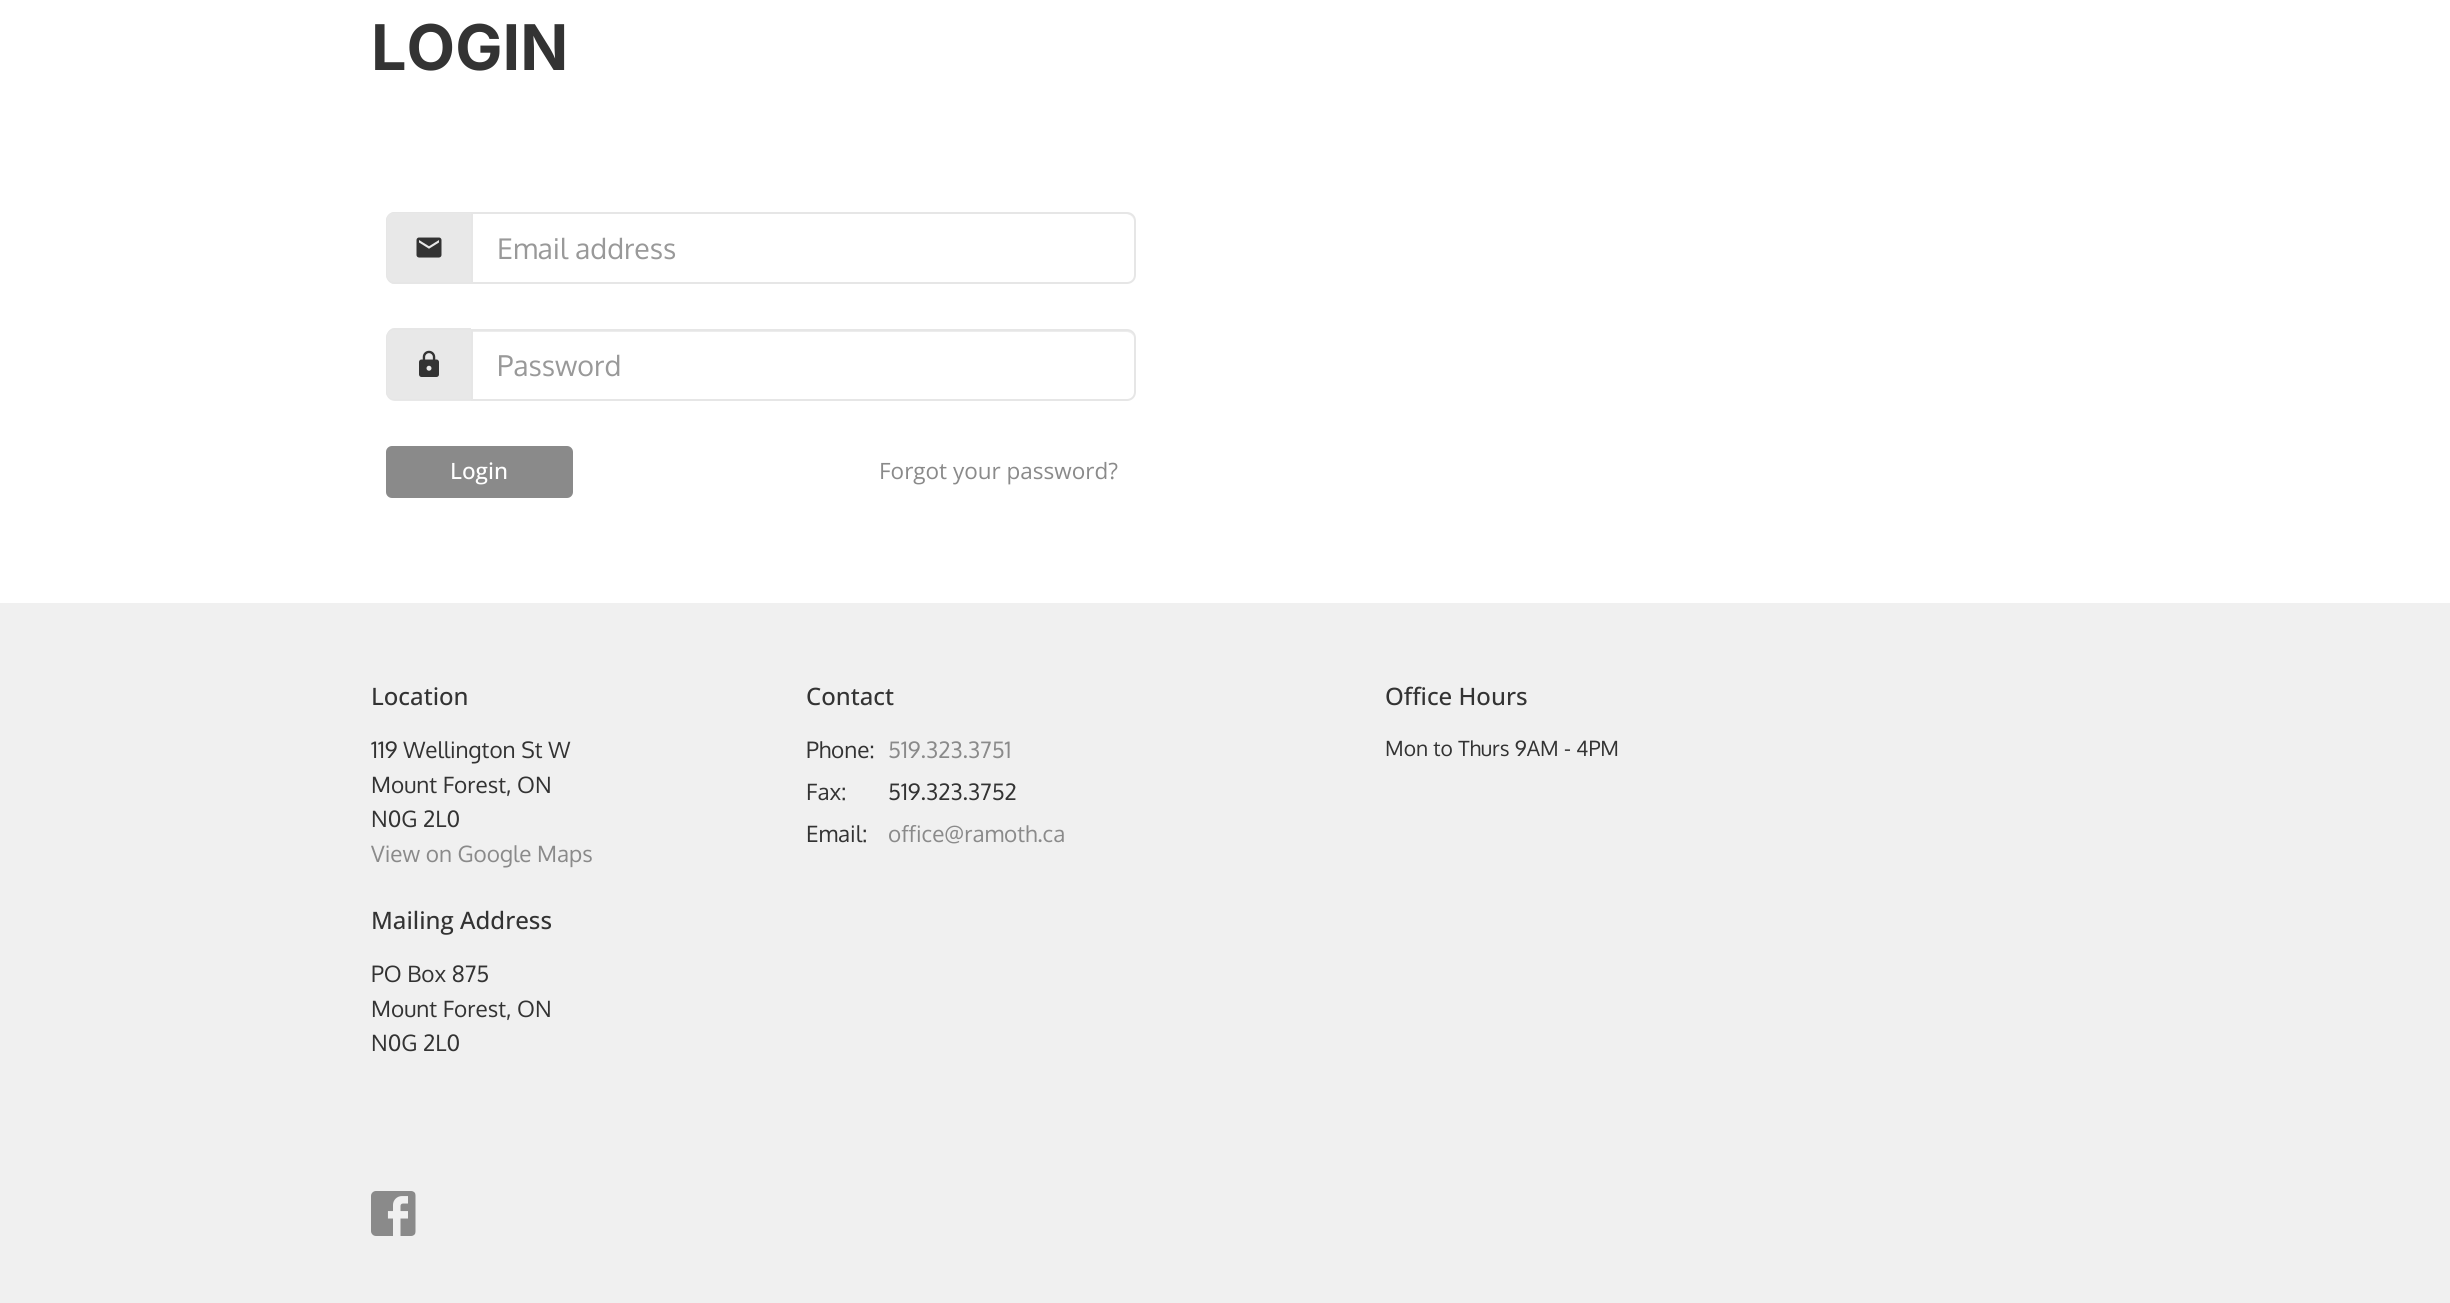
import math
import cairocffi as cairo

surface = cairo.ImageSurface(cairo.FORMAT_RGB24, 2450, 1303)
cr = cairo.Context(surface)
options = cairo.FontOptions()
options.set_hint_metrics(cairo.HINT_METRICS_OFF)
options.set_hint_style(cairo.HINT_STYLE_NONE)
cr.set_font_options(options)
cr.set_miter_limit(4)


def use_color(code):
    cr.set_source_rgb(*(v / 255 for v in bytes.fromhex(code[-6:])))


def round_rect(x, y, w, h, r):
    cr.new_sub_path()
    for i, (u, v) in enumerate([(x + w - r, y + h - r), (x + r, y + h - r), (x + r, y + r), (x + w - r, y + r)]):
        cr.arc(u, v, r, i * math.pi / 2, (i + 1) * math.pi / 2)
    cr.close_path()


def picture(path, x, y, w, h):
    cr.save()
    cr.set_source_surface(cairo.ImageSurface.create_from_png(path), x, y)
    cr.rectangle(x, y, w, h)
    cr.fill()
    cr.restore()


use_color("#ffffff")
cr.paint()
cr.select_font_face("Inter", cairo.FONT_SLANT_NORMAL, cairo.FONT_WEIGHT_BOLD)
cr.set_font_size(63)
use_color("#333333")
cr.move_to(371, 70)
cr.show_text("LOGIN")
use_color("#e8e8e8")
cr.new_path()
cr.move_to(395, 212)
cr.line_to(471, 212)
cr.line_to(471, 284)
cr.line_to(395, 284)
cr.curve_to(390, 284, 386, 280, 386, 275)
cr.line_to(386, 221)
cr.curve_to(386, 216, 390, 212, 395, 212)
cr.close_path()
cr.fill()
use_color("#e6e6e6")
cr.set_fill_rule(cairo.FILL_RULE_EVEN_ODD)
cr.new_path()
cr.move_to(394, 212)
cr.line_to(471, 212)
cr.line_to(471, 284)
cr.line_to(394, 284)
cr.curve_to(390, 284, 386, 279, 386, 274)
cr.line_to(386, 220)
cr.curve_to(386, 216, 390, 212, 394, 212)
cr.close_path()
cr.move_to(394, 213)
cr.line_to(471, 213)
cr.line_to(471, 282)
cr.line_to(394, 282)
cr.curve_to(390, 282, 387, 279, 387, 274)
cr.line_to(387, 220)
cr.curve_to(387, 216, 390, 213, 394, 213)
cr.close_path()
cr.fill()
picture("img1.png", 416, 237, 26, 21)
use_color("#ececec")
cr.set_fill_rule(cairo.FILL_RULE_WINDING)
cr.new_path()
cr.move_to(473, 213)
cr.line_to(473, 214)
cr.line_to(1126, 214)
cr.curve_to(1131, 214, 1134, 218, 1134, 222)
cr.curve_to(1134, 217, 1131, 213, 1126, 213)
cr.close_path()
cr.fill()
cr.new_path()
cr.move_to(472, 213)
cr.line_to(1127, 213)
cr.curve_to(1131.5, 213, 1135, 216.5, 1135, 221)
cr.line_to(1135, 275)
cr.curve_to(1135, 279.5, 1131.5, 283, 1127, 283)
cr.line_to(472, 283)
cr.close_path()
use_color("#e6e6e6")
cr.stroke()
cr.select_font_face("Oxygen")
cr.set_font_size(28.5)
use_color("#999999")
cr.move_to(497, 259)
cr.show_text("Email address")
use_color("#e8e8e8")
cr.new_path()
cr.move_to(395, 329)
cr.line_to(471, 329)
cr.line_to(471, 401)
cr.line_to(395, 401)
cr.curve_to(390, 401, 386, 397, 386, 392)
cr.line_to(386, 338)
cr.curve_to(386, 333, 390, 329, 395, 329)
cr.close_path()
cr.fill()
use_color("#e6e6e6")
cr.set_fill_rule(cairo.FILL_RULE_EVEN_ODD)
cr.new_path()
cr.move_to(394, 328)
cr.line_to(471, 328)
cr.line_to(471, 400)
cr.line_to(394, 400)
cr.curve_to(390, 400, 386, 396, 386, 392)
cr.line_to(386, 338)
cr.curve_to(386, 333, 390, 328, 394, 328)
cr.close_path()
cr.move_to(394, 330)
cr.line_to(471, 330)
cr.line_to(471, 399)
cr.line_to(394, 399)
cr.curve_to(390, 399, 387, 396, 387, 392)
cr.line_to(387, 338)
cr.curve_to(387, 333, 390, 330, 394, 330)
cr.close_path()
cr.fill()
picture("img2.png", 419, 350, 20, 27)
use_color("#ececec")
cr.set_fill_rule(cairo.FILL_RULE_WINDING)
cr.new_path()
cr.move_to(473, 330)
cr.line_to(473, 332)
cr.line_to(1126, 332)
cr.curve_to(1131, 332, 1134, 335, 1134, 339)
cr.curve_to(1134, 334, 1131, 330, 1126, 330)
cr.close_path()
cr.fill()
cr.new_path()
cr.move_to(472, 330)
cr.line_to(1127, 330)
cr.curve_to(1131.5, 330, 1135, 333.5, 1135, 338)
cr.line_to(1135, 392)
cr.curve_to(1135, 396.5, 1131.5, 400, 1127, 400)
cr.line_to(472, 400)
cr.close_path()
use_color("#e6e6e6")
cr.stroke()
use_color("#999999")
cr.move_to(497, 376)
cr.show_text("Password")
use_color("#8a8a8a")
round_rect(386, 446, 187, 52, 6)
cr.fill()
cr.select_font_face("Open Sans Medium")
cr.set_font_size(22.5)
use_color("#ffffff")
cr.move_to(450, 479)
cr.show_text("Login")
cr.select_font_face("Open Sans")
use_color("#8a8a8a")
cr.move_to(879, 479)
cr.show_text("Forgot your password?")
use_color("#f0f0f0")
cr.rectangle(0, 603, 2450, 700)
cr.fill()
cr.select_font_face("Open Sans Medium")
cr.set_font_size(24)
use_color("#333333")
cr.move_to(371, 705)
cr.show_text("Location")
cr.select_font_face("Oxygen")
cr.set_font_size(22.5)
cr.move_to(371, 758)
cr.show_text("119 Wellington St W")
cr.move_to(371, 793)
cr.show_text("Mount Forest, ON")
cr.move_to(371, 827)
cr.show_text("N0G 2L0")
use_color("#8a8a8a")
cr.move_to(371, 862)
cr.show_text("View on Google Maps")
cr.select_font_face("Open Sans Medium")
cr.set_font_size(24)
use_color("#333333")
cr.move_to(371, 929)
cr.show_text("Mailing Address")
cr.select_font_face("Oxygen")
cr.set_font_size(22.5)
cr.move_to(371, 982)
cr.show_text("PO Box 875")
cr.move_to(371, 1017)
cr.show_text("Mount Forest, ON")
cr.move_to(371, 1051)
cr.show_text("N0G 2L0")
cr.select_font_face("Open Sans Medium")
cr.set_font_size(24)
cr.move_to(806, 705)
cr.show_text("Contact")
cr.select_font_face("Oxygen")
cr.set_font_size(22.5)
cr.move_to(806, 758)
cr.show_text("Phone:")
use_color("#8a8a8a")
cr.move_to(888, 758)
cr.show_text("519.323.3751")
use_color("#333333")
cr.move_to(806, 800)
cr.show_text("Fax:")
cr.move_to(888, 800)
cr.show_text("519.323.3752")
cr.move_to(806, 842)
cr.show_text("Email:")
use_color("#8a8a8a")
cr.move_to(888, 842)
cr.show_text("office@ramoth.ca")
cr.select_font_face("Open Sans Medium")
cr.set_font_size(24)
use_color("#333333")
cr.move_to(1385, 705)
cr.show_text("Office Hours")
cr.select_font_face("Oxygen")
cr.set_font_size(21)
cr.move_to(1385, 756)
cr.show_text("Mon to Thurs 9AM - 4PM")
picture("img3.png", 371, 1191, 45, 45)
surface.write_to_png("result.png")
